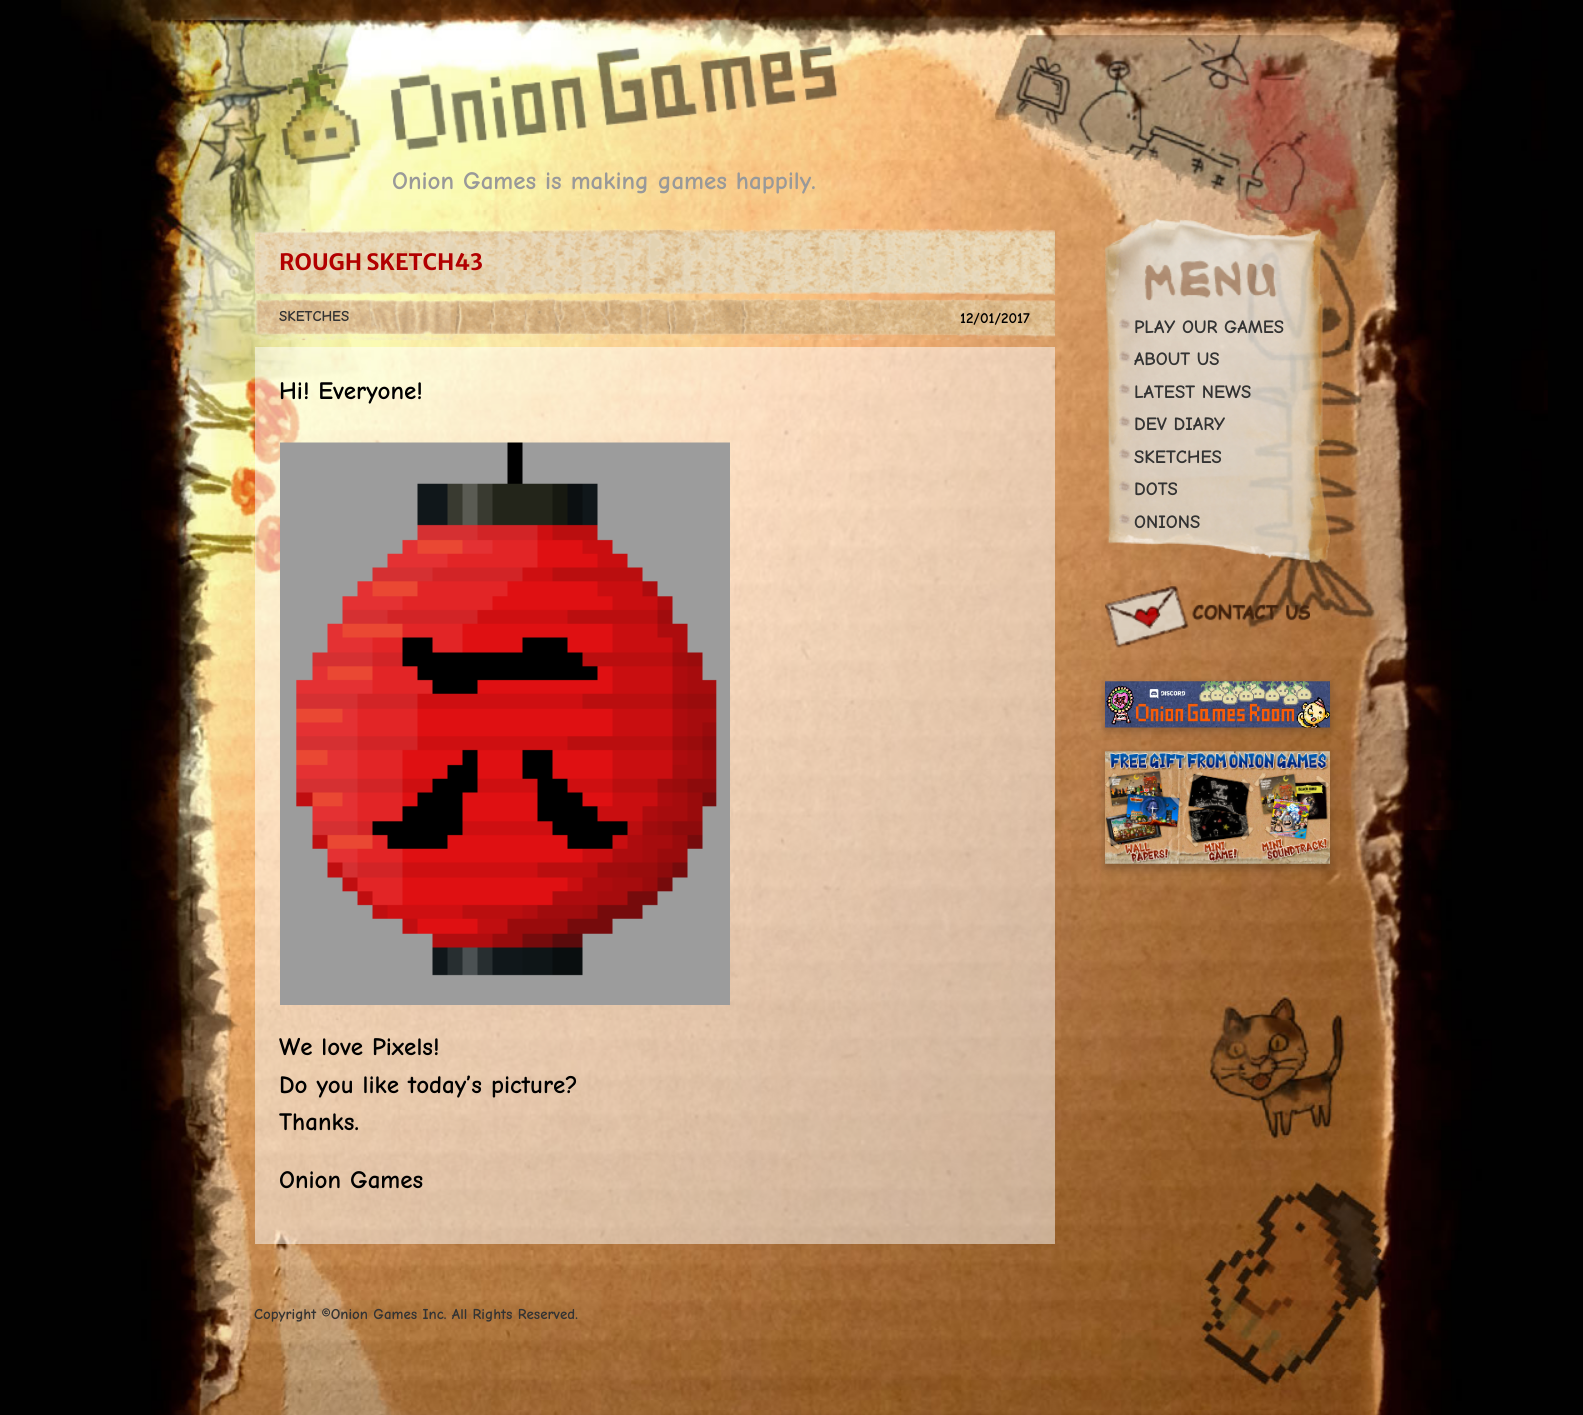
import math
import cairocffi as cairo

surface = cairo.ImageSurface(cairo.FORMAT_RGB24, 1583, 1415)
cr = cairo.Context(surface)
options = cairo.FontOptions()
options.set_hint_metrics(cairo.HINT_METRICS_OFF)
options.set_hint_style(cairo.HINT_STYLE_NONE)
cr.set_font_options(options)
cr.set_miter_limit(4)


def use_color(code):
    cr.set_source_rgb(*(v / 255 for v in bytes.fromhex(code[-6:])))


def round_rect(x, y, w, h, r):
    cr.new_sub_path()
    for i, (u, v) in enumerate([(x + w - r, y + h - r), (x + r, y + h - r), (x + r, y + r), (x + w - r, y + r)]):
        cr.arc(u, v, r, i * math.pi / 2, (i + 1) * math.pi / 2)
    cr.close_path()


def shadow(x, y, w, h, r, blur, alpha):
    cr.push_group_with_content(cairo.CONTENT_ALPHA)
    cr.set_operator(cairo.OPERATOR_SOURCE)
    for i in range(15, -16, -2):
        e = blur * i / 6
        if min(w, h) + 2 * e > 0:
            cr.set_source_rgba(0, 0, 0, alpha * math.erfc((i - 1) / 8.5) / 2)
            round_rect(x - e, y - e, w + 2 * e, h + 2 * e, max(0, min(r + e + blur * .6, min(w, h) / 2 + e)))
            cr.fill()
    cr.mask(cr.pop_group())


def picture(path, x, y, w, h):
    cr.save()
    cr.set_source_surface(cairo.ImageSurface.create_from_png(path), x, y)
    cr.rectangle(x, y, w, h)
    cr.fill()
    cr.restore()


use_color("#010101")
cr.paint()
picture("img1.png", 61, 0, 1487, 1415)
picture("img2.png", 280, 45, 558, 120)
cr.select_font_face("Comic Neue", cairo.FONT_SLANT_NORMAL, cairo.FONT_WEIGHT_BOLD)
cr.set_font_size(25)
use_color("#999999")
cr.move_to(392, 189)
cr.show_text("Onion Games is making games happily.")
picture("img3.png", 255, 228, 800, 113)
cr.select_font_face("Merriweather Sans", cairo.FONT_SLANT_NORMAL, cairo.FONT_WEIGHT_BOLD)
cr.set_font_size(22.5)
use_color("#b20000")
cr.move_to(279, 270)
cr.show_text("ROUGH SKETCH43")
cr.select_font_face("Comic Neue", cairo.FONT_SLANT_NORMAL, cairo.FONT_WEIGHT_BOLD)
cr.set_font_size(15)
use_color("#333333")
cr.move_to(279, 321)
cr.show_text("SKETCHES")
use_color("#000000")
cr.move_to(960, 323)
cr.show_text("12/01/2017")
cr.set_source_rgba(1, 1, 1, 0.5)
cr.rectangle(255, 347, 800, 897)
cr.fill()
cr.set_font_size(25)
use_color("#000000")
cr.move_to(279, 399)
cr.show_text("Hi! Everyone!")
picture("img4.png", 280, 442, 450, 563)
cr.move_to(279, 1055)
cr.show_text("We love Pixels!")
cr.move_to(279, 1093)
cr.show_text("Do you like today’s picture?")
cr.move_to(279, 1130)
cr.show_text("Thanks.")
cr.move_to(279, 1188)
cr.show_text("Onion Games")
picture("img5.png", 1105, 218, 225, 345)
picture("img6.png", 1119, 318, 12, 11)
cr.set_font_size(18.75)
use_color("#333333")
cr.move_to(1134, 333)
cr.show_text("PLAY OUR GAMES")
picture("img7.png", 1119, 351, 12, 11)
cr.move_to(1134, 365)
cr.show_text("ABOUT US")
picture("img8.png", 1119, 384, 12, 10)
cr.move_to(1134, 398)
cr.show_text("LATEST NEWS")
picture("img9.png", 1119, 416, 12, 11)
cr.move_to(1134, 430)
cr.show_text("DEV DIARY")
picture("img10.png", 1119, 448, 12, 11)
cr.move_to(1134, 463)
cr.show_text("SKETCHES")
picture("img11.png", 1119, 481, 12, 11)
cr.move_to(1134, 495)
cr.show_text("DOTS")
picture("img12.png", 1119, 514, 12, 10)
cr.move_to(1134, 528)
cr.show_text("ONIONS")
picture("img13.png", 1105, 586, 205, 62)
use_color("#000000")
shadow(1105, 685, 225, 46, 0, 5, 0.24)
picture("img14.png", 1105, 681, 225, 47)
shadow(1105, 755, 225, 113, 0, 5, 0.24)
picture("img15.png", 1105, 751, 225, 113)
cr.set_font_size(15)
use_color("#333333")
cr.move_to(254, 1319)
cr.show_text("Copyright ©Onion Games Inc. All Rights Reserved.")
surface.write_to_png("result.png")
